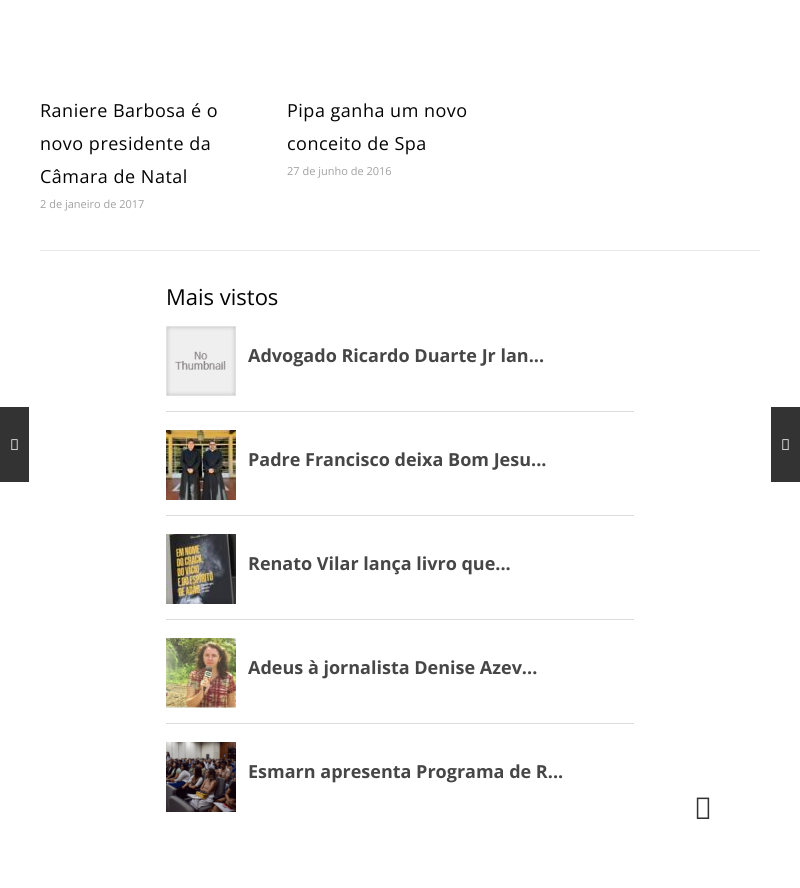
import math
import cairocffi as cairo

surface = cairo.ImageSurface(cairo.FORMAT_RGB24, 800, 888)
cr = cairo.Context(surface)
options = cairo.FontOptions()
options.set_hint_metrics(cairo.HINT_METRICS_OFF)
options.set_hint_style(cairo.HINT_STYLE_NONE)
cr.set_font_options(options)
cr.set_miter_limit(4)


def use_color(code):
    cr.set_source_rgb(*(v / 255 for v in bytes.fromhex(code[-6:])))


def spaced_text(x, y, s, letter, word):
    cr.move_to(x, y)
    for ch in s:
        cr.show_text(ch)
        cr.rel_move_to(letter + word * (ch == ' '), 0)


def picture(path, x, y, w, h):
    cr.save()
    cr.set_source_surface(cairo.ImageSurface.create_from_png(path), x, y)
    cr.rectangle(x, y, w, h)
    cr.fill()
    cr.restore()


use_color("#ffffff")
cr.paint()
use_color("#e8e8e8")
cr.rectangle(40, 250, 720, 1)
cr.fill()
cr.select_font_face("Open Sans")
cr.set_font_size(18)
use_color("#030303")
spaced_text(40, 117, "Raniere Barbosa é o", 0.5, 0)
spaced_text(40, 150, "novo presidente da", 0.5, 0)
spaced_text(40, 183, "Câmara de Natal", 0.5, 0)
cr.set_font_size(11)
use_color("#a1a1a1")
cr.move_to(40, 208)
cr.show_text("2 de janeiro de 2017")
cr.set_font_size(18)
use_color("#030303")
spaced_text(287, 117, "Pipa ganha um novo", 0.5, 0)
spaced_text(287, 150, "conceito de Spa", 0.5, 0)
cr.set_font_size(11)
use_color("#a1a1a1")
cr.move_to(287, 175)
cr.show_text("27 de junho de 2016")
use_color("#333333")
cr.rectangle(0, 407, 29, 75)
cr.fill()
picture("img1.png", 11, 439, 7, 11)
cr.rectangle(771, 407, 29, 75)
cr.fill()
picture("img1.png", 782, 439, 7, 11)
cr.set_font_size(22)
use_color("#030303")
cr.move_to(166, 305)
cr.show_text("Mais vistos")
use_color("#dddddd")
cr.rectangle(166, 411, 468, 1)
cr.fill()
picture("img2.png", 166, 326, 70, 70)
cr.select_font_face("Open Sans", cairo.FONT_SLANT_NORMAL, cairo.FONT_WEIGHT_BOLD)
cr.set_font_size(18)
use_color("#464646")
cr.move_to(248, 362)
cr.show_text("Advogado Ricardo Duarte Jr lan...")
use_color("#dddddd")
cr.rectangle(166, 515, 468, 1)
cr.fill()
picture("img3.png", 166, 430, 70, 70)
use_color("#464646")
cr.move_to(248, 466)
cr.show_text("Padre Francisco deixa Bom Jesu...")
use_color("#dddddd")
cr.rectangle(166, 619, 468, 1)
cr.fill()
picture("img4.png", 166, 534, 70, 70)
use_color("#464646")
cr.move_to(248, 570)
cr.show_text("Renato Vilar lança livro que...")
use_color("#dddddd")
cr.rectangle(166, 723, 468, 1)
cr.fill()
picture("img5.png", 166, 638, 70, 70)
use_color("#464646")
cr.move_to(248, 674)
cr.show_text("Adeus à jornalista Denise Azev...")
picture("img6.png", 166, 742, 70, 70)
cr.move_to(248, 778)
cr.show_text("Esmarn apresenta Programa de R...")
picture("img7.png", 696, 797, 14, 22)
surface.write_to_png("result.png")
